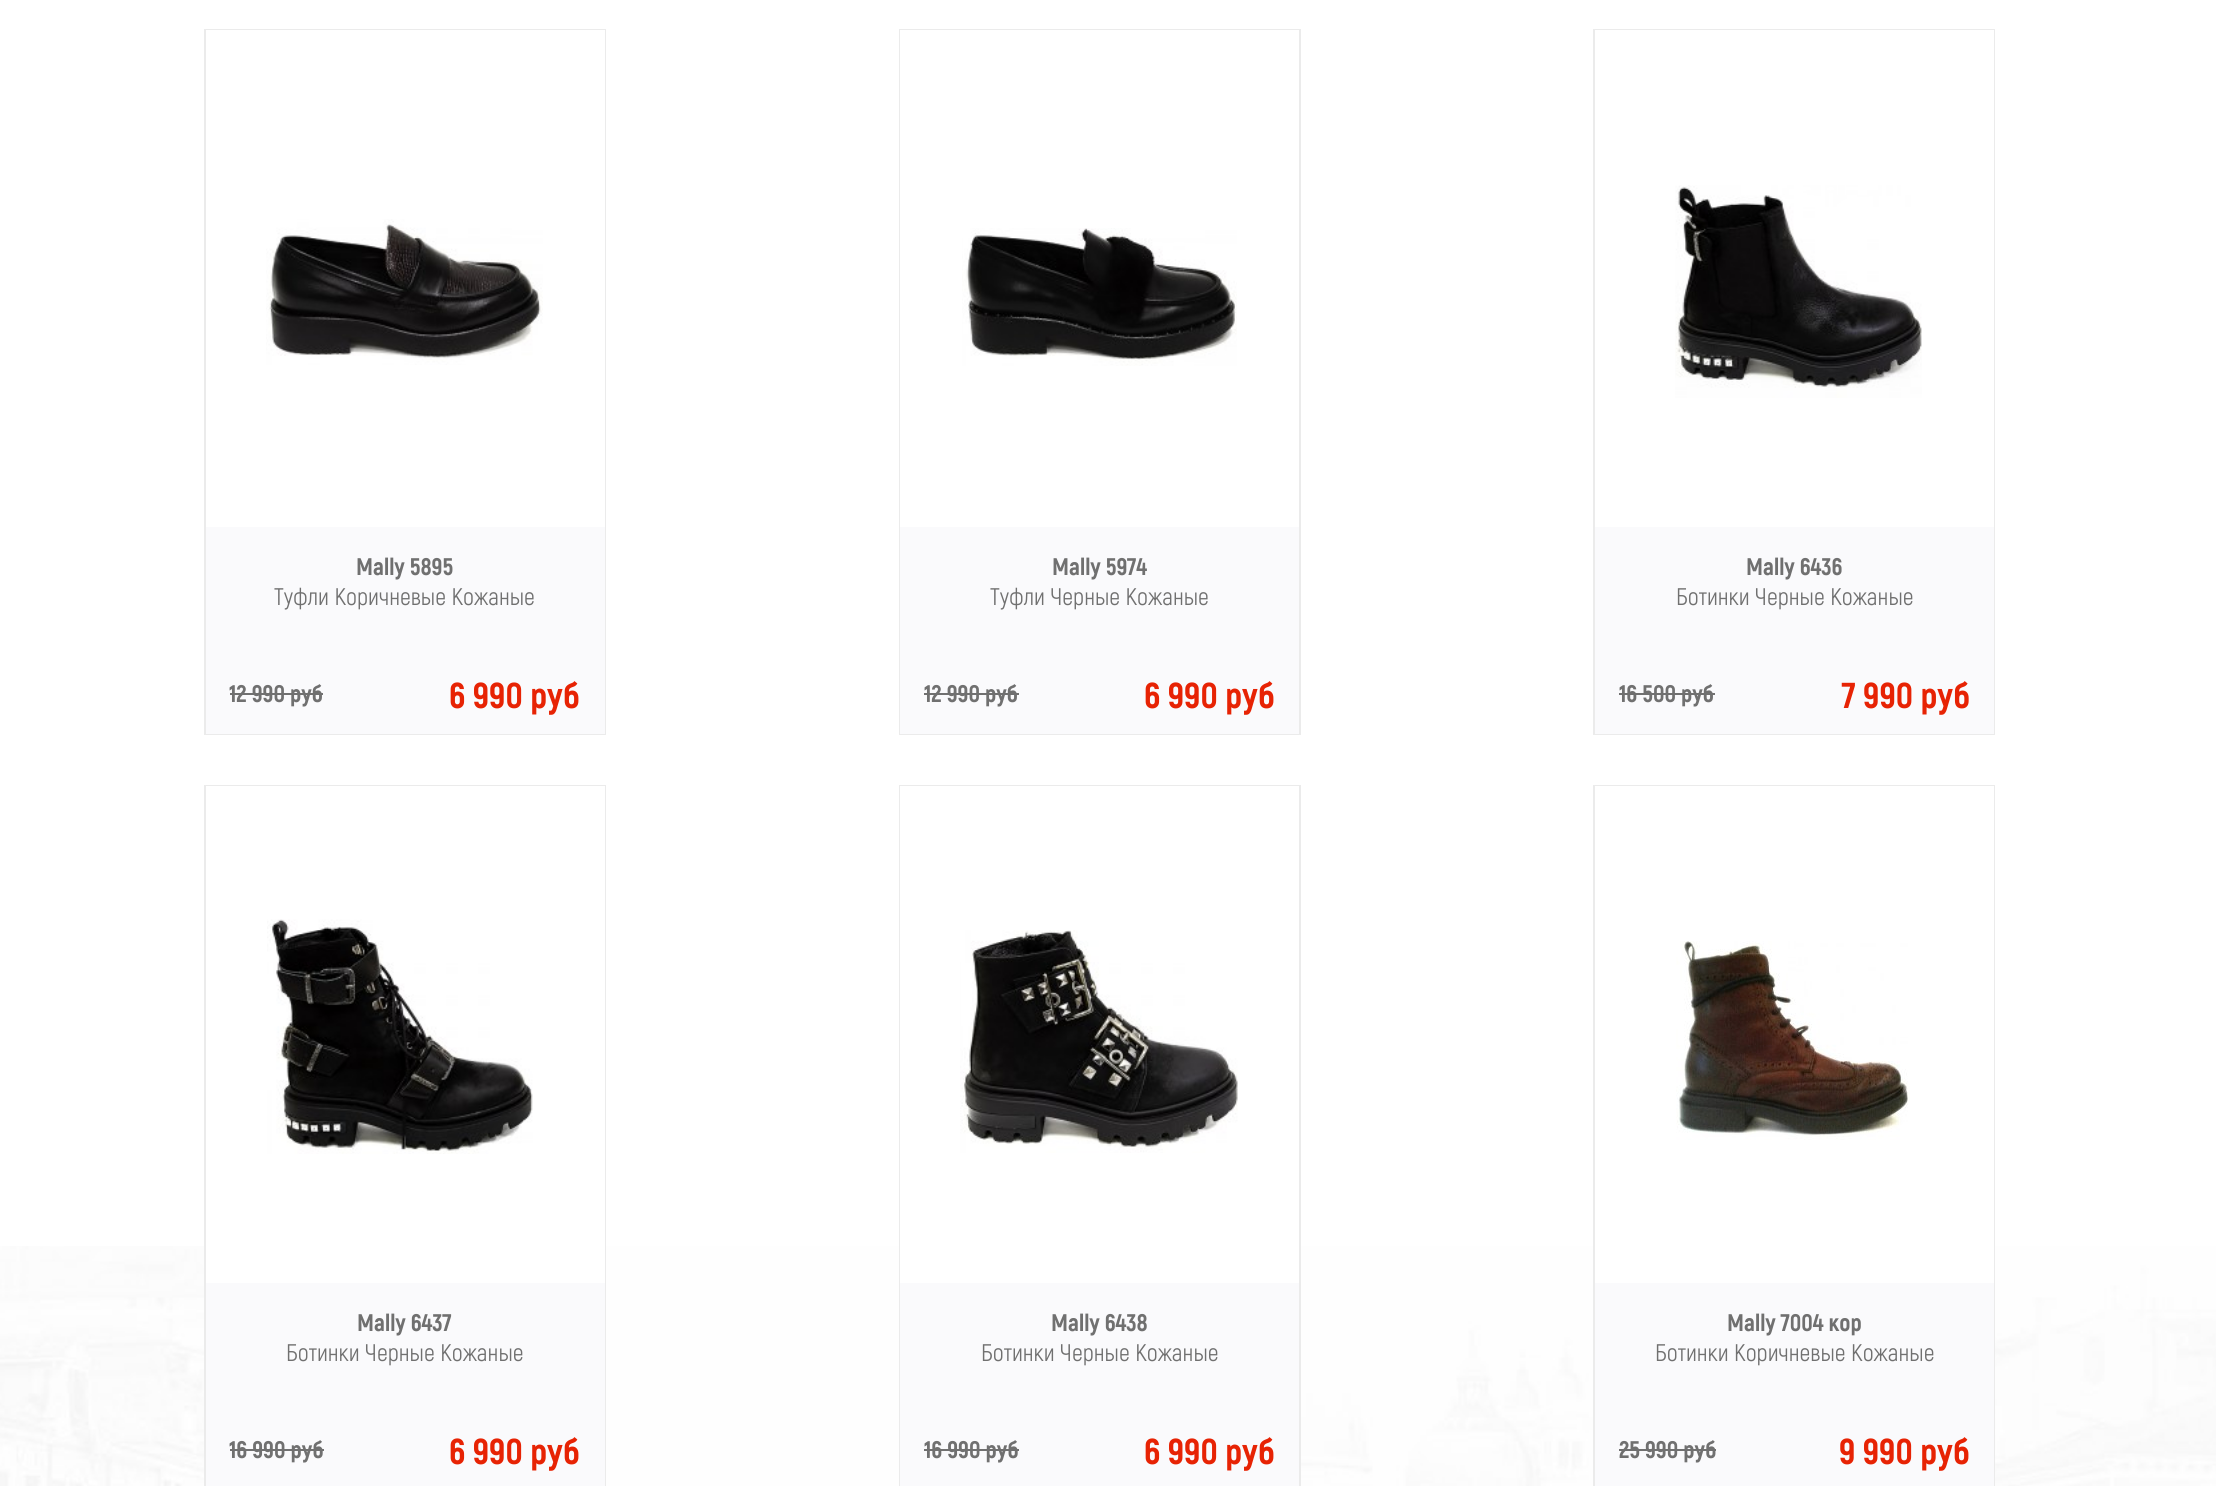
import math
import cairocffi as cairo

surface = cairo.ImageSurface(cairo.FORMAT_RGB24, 2216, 1486)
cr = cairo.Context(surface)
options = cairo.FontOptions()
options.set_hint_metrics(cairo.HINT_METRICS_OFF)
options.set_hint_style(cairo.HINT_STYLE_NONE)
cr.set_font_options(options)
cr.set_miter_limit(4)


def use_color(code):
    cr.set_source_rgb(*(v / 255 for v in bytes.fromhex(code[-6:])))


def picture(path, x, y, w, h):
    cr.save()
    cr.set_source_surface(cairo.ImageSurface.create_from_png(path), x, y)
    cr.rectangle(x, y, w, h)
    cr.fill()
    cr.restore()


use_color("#ffffff")
cr.paint()
picture("img1.png", 0, 1246, 2216, 240)
cr.rectangle(205, 30, 400, 704)
use_color("#ebebeb")
cr.stroke()
use_color("#ffffff")
cr.rectangle(206, 30, 399, 497)
cr.fill()
picture("img2.png", 266, 219, 277, 146)
use_color("#fafafc")
cr.rectangle(206, 527, 399, 207)
cr.fill()
cr.select_font_face("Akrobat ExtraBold")
cr.set_font_size(24)
use_color("#707070")
cr.move_to(356, 575)
cr.show_text("Mally 5895")
cr.select_font_face("Akrobat")
cr.move_to(274, 605)
cr.show_text("Туфли Коричневые Кожаные")
cr.select_font_face("Akrobat ExtraBold")
cr.move_to(229, 702)
cr.show_text("12 990 руб")
cr.rectangle(230, 693, 93, 2)
cr.fill()
cr.set_font_size(36)
use_color("#e72304")
cr.move_to(449, 708)
cr.show_text("6 990 руб")
cr.rectangle(900, 30, 400, 704)
use_color("#ebebeb")
cr.stroke()
use_color("#ffffff")
cr.rectangle(900, 30, 399, 497)
cr.fill()
picture("img3.png", 962, 228, 275, 138)
use_color("#fafafc")
cr.rectangle(900, 527, 399, 207)
cr.fill()
cr.set_font_size(24)
use_color("#707070")
cr.move_to(1052, 575)
cr.show_text("Mally 5974")
cr.select_font_face("Akrobat")
cr.move_to(990, 605)
cr.show_text("Туфли Черные Кожаные")
cr.select_font_face("Akrobat ExtraBold")
cr.move_to(924, 702)
cr.show_text("12 990 руб")
cr.rectangle(924, 693, 95, 2)
cr.fill()
cr.set_font_size(36)
use_color("#e72304")
cr.move_to(1144, 708)
cr.show_text("6 990 руб")
cr.rectangle(1594, 30, 400, 704)
use_color("#ebebeb")
cr.stroke()
use_color("#ffffff")
cr.rectangle(1595, 30, 399, 497)
cr.fill()
picture("img4.png", 1675, 185, 247, 213)
use_color("#fafafc")
cr.rectangle(1595, 527, 399, 207)
cr.fill()
cr.set_font_size(24)
use_color("#707070")
cr.move_to(1746, 575)
cr.show_text("Mally 6436")
cr.select_font_face("Akrobat")
cr.move_to(1676, 605)
cr.show_text("Ботинки Черные Кожаные")
cr.select_font_face("Akrobat ExtraBold")
cr.move_to(1619, 702)
cr.show_text("16 500 руб")
cr.rectangle(1619, 693, 96, 2)
cr.fill()
cr.set_font_size(36)
use_color("#e72304")
cr.move_to(1842, 708)
cr.show_text("7 990 руб")
cr.rectangle(205, 786, 400, 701)
use_color("#ebebeb")
cr.stroke()
use_color("#ffffff")
cr.rectangle(206, 786, 399, 497)
cr.fill()
picture("img5.png", 267, 919, 266, 235)
use_color("#fafafc")
cr.rectangle(206, 1283, 399, 203)
cr.fill()
cr.set_font_size(24)
use_color("#707070")
cr.move_to(357, 1331)
cr.show_text("Mally 6437")
cr.select_font_face("Akrobat")
cr.move_to(286, 1361)
cr.show_text("Ботинки Черные Кожаные")
cr.select_font_face("Akrobat ExtraBold")
cr.move_to(229, 1458)
cr.show_text("16 990 руб")
cr.rectangle(230, 1449, 94, 2)
cr.fill()
cr.set_font_size(36)
use_color("#e72304")
cr.move_to(449, 1464)
cr.show_text("6 990 руб")
cr.rectangle(900, 786, 400, 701)
use_color("#ebebeb")
cr.stroke()
use_color("#ffffff")
cr.rectangle(900, 786, 399, 497)
cr.fill()
picture("img6.png", 960, 930, 278, 223)
use_color("#fafafc")
cr.rectangle(900, 1283, 399, 203)
cr.fill()
cr.set_font_size(24)
use_color("#707070")
cr.move_to(1051, 1331)
cr.show_text("Mally 6438")
cr.select_font_face("Akrobat")
cr.move_to(981, 1361)
cr.show_text("Ботинки Черные Кожаные")
cr.select_font_face("Akrobat ExtraBold")
cr.move_to(924, 1458)
cr.show_text("16 990 руб")
cr.rectangle(924, 1449, 95, 2)
cr.fill()
cr.set_font_size(36)
use_color("#e72304")
cr.move_to(1144, 1464)
cr.show_text("6 990 руб")
cr.rectangle(1594, 786, 400, 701)
use_color("#ebebeb")
cr.stroke()
use_color("#ffffff")
cr.rectangle(1595, 786, 399, 497)
cr.fill()
picture("img7.png", 1676, 941, 234, 199)
use_color("#fafafc")
cr.rectangle(1595, 1283, 399, 203)
cr.fill()
cr.set_font_size(24)
use_color("#707070")
cr.move_to(1727, 1331)
cr.show_text("Mally 7004 кор")
cr.select_font_face("Akrobat")
cr.move_to(1655, 1361)
cr.show_text("Ботинки Коричневые Кожаные")
cr.select_font_face("Akrobat ExtraBold")
cr.move_to(1619, 1458)
cr.show_text("25 990 руб")
cr.rectangle(1619, 1449, 97, 2)
cr.fill()
cr.set_font_size(36)
use_color("#e72304")
cr.move_to(1839, 1464)
cr.show_text("9 990 руб")
surface.write_to_png("result.png")
